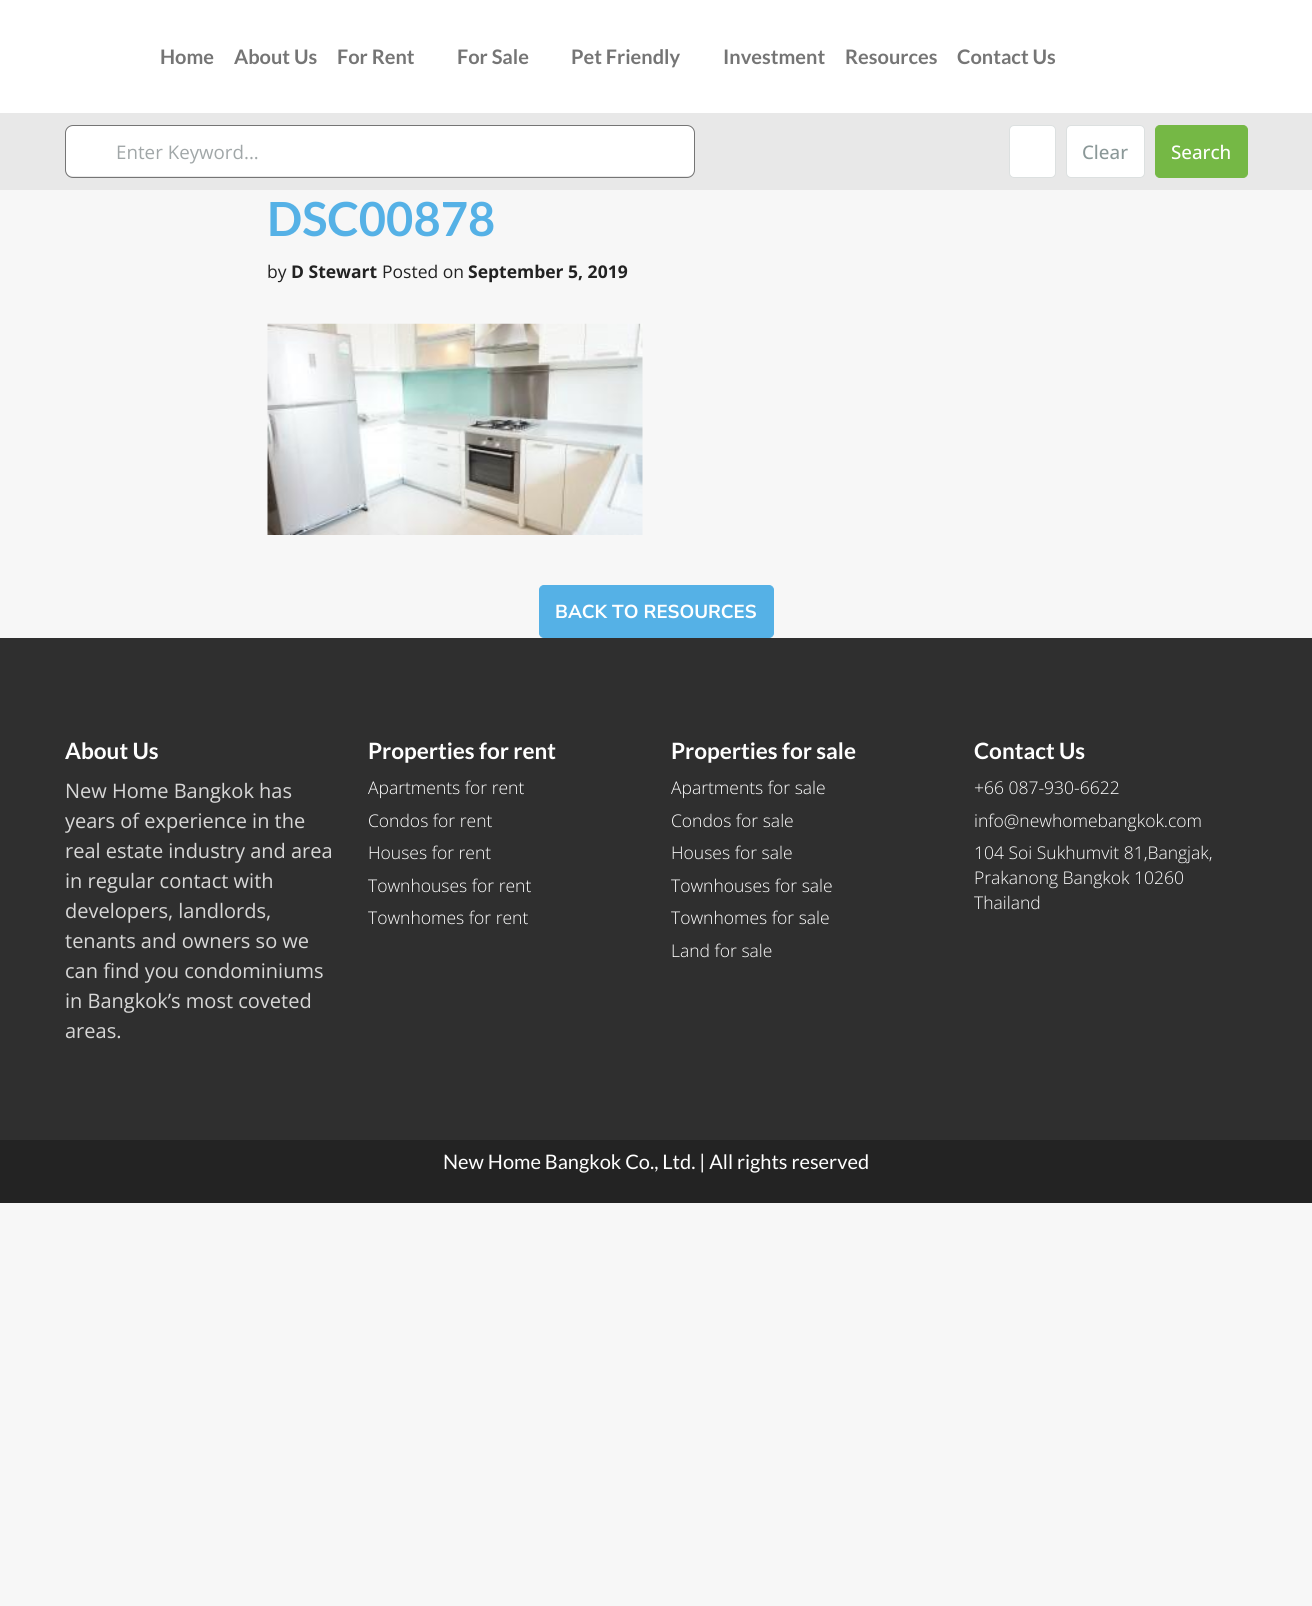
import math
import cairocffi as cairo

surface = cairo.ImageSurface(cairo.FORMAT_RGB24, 1312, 1606)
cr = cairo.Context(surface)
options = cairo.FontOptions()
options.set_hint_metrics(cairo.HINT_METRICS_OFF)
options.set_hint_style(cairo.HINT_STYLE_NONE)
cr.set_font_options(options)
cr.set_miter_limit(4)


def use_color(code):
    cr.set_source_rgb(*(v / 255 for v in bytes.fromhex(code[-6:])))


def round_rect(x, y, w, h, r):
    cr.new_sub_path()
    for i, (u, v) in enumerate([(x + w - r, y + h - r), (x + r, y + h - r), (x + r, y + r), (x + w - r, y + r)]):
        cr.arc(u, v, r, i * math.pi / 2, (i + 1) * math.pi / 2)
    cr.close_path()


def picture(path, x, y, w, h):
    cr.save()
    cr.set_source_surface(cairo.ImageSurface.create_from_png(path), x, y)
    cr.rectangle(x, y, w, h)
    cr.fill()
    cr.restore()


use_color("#f7f7f7")
cr.paint()
use_color("#ffffff")
cr.rectangle(0, 0, 1312, 113)
cr.fill()
cr.select_font_face("Lato", cairo.FONT_SLANT_NORMAL, cairo.FONT_WEIGHT_BOLD)
cr.set_font_size(20)
use_color("#757575")
cr.move_to(160, 64)
cr.show_text("Home")
cr.move_to(234, 64)
cr.show_text("About Us")
cr.move_to(337, 64)
cr.show_text("For Rent")
cr.move_to(457, 64)
cr.show_text("For Sale")
cr.move_to(571, 64)
cr.show_text("Pet Friendly")
cr.move_to(723, 64)
cr.show_text("Investment")
cr.move_to(845, 64)
cr.show_text("Resources")
cr.move_to(957, 64)
cr.show_text("Contact Us")
use_color("#e8e8e8")
cr.rectangle(0, 113, 1312, 77)
cr.fill()
use_color("#ffffff")
round_rect(66, 126, 628, 50, 6)
cr.fill()
round_rect(65.5, 125.5, 629, 52, 7.5)
use_color("#757575")
cr.set_line_width(1)
cr.stroke()
cr.select_font_face("Open Sans")
cr.set_font_size(18.75)
use_color("#a1a7a8")
cr.move_to(116, 159)
cr.show_text("Enter Keyword...")
use_color("#ffffff")
round_rect(1009.5, 125.5, 46, 52, 4.5)
cr.fill_preserve()
use_color("#dce0e0")
cr.stroke()
use_color("#ffffff")
round_rect(1066.5, 125.5, 78, 52, 4.5)
cr.fill_preserve()
use_color("#dce0e0")
cr.stroke()
cr.select_font_face("Open Sans Medium")
use_color("#8b9898")
cr.move_to(1082, 159)
cr.show_text("Clear")
use_color("#75b845")
round_rect(1155.5, 125.5, 92, 52, 4.5)
cr.fill_preserve()
cr.stroke()
use_color("#ffffff")
cr.move_to(1171, 159)
cr.show_text("Search")
cr.select_font_face("Lato", cairo.FONT_SLANT_NORMAL, cairo.FONT_WEIGHT_BOLD)
cr.set_font_size(47)
use_color("#55b1e6")
cr.move_to(267, 236)
cr.show_text("DSC00878")
cr.select_font_face("Open Sans")
cr.set_font_size(17.5)
use_color("#222222")
cr.move_to(267, 278)
cr.show_text("by")
cr.select_font_face("Open Sans", cairo.FONT_SLANT_NORMAL, cairo.FONT_WEIGHT_BOLD)
cr.move_to(291, 278)
cr.show_text("D Stewart")
cr.select_font_face("Open Sans")
cr.move_to(382, 278)
cr.show_text("Posted on")
cr.select_font_face("Open Sans", cairo.FONT_SLANT_NORMAL, cairo.FONT_WEIGHT_BOLD)
cr.move_to(468, 278)
cr.show_text("September 5, 2019")
picture("img1.png", 267, 323, 376, 212)
use_color("#55b1e6")
round_rect(539.5, 585.5, 234, 52, 4.5)
cr.fill_preserve()
cr.stroke()
cr.select_font_face("Nunito Sans", cairo.FONT_SLANT_NORMAL, cairo.FONT_WEIGHT_BOLD)
cr.set_font_size(18.75)
use_color("#ffffff")
cr.move_to(555, 618)
cr.show_text("BACK TO RESOURCES")
use_color("#2f2f2f")
cr.rectangle(0, 638, 1312, 502)
cr.fill()
cr.select_font_face("Lato", cairo.FONT_SLANT_NORMAL, cairo.FONT_WEIGHT_BOLD)
cr.set_font_size(22.5)
use_color("#ffffff")
cr.move_to(65, 759)
cr.show_text("About Us")
cr.select_font_face("Open Sans")
cr.set_font_size(20)
use_color("#d7d7d7")
cr.move_to(65, 798)
cr.show_text("New Home Bangkok has")
cr.move_to(65, 828)
cr.show_text("years of experience in the")
cr.move_to(65, 858)
cr.show_text("real estate industry and area")
cr.move_to(65, 888)
cr.show_text("in regular contact with")
cr.move_to(65, 918)
cr.show_text("developers, landlords,")
cr.move_to(65, 948)
cr.show_text("tenants and owners so we")
cr.move_to(65, 978)
cr.show_text("can find you condominiums")
cr.move_to(65, 1008)
cr.show_text("in Bangkok’s most coveted")
cr.move_to(65, 1038)
cr.show_text("areas.")
cr.select_font_face("Lato", cairo.FONT_SLANT_NORMAL, cairo.FONT_WEIGHT_BOLD)
cr.set_font_size(22.5)
use_color("#ffffff")
cr.move_to(368, 759)
cr.show_text("Properties for rent")
cr.select_font_face("Open Sans Light")
cr.set_font_size(17.5)
cr.move_to(368, 794)
cr.show_text("Apartments for rent")
cr.move_to(368, 827)
cr.show_text("Condos for rent")
cr.move_to(368, 859)
cr.show_text("Houses for rent")
cr.move_to(368, 892)
cr.show_text("Townhouses for rent")
cr.move_to(368, 924)
cr.show_text("Townhomes for rent")
cr.select_font_face("Lato", cairo.FONT_SLANT_NORMAL, cairo.FONT_WEIGHT_BOLD)
cr.set_font_size(22.5)
cr.move_to(671, 759)
cr.show_text("Properties for sale")
cr.select_font_face("Open Sans Light")
cr.set_font_size(17.5)
cr.move_to(671, 794)
cr.show_text("Apartments for sale")
cr.move_to(671, 827)
cr.show_text("Condos for sale")
cr.move_to(671, 859)
cr.show_text("Houses for sale")
cr.move_to(671, 892)
cr.show_text("Townhouses for sale")
cr.move_to(671, 924)
cr.show_text("Townhomes for sale")
cr.move_to(671, 957)
cr.show_text("Land for sale")
cr.select_font_face("Lato", cairo.FONT_SLANT_NORMAL, cairo.FONT_WEIGHT_BOLD)
cr.set_font_size(22.5)
cr.move_to(974, 759)
cr.show_text("Contact Us")
cr.select_font_face("Open Sans Light")
cr.set_font_size(17.5)
cr.move_to(974, 794)
cr.show_text("+66 087-930-6622")
cr.move_to(974, 827)
cr.show_text("info@newhomebangkok.com")
cr.move_to(974, 859)
cr.show_text("104 Soi Sukhumvit 81,Bangjak,")
cr.move_to(974, 884)
cr.show_text("Prakanong Bangkok 10260")
cr.move_to(974, 909)
cr.show_text("Thailand")
use_color("#232323")
cr.rectangle(0, 1140, 1312, 63)
cr.fill()
cr.select_font_face("Lato")
cr.set_font_size(20)
use_color("#ffffff")
cr.move_to(443, 1169)
cr.show_text("New Home Bangkok Co., Ltd. | All rights reserved")
surface.write_to_png("result.png")
